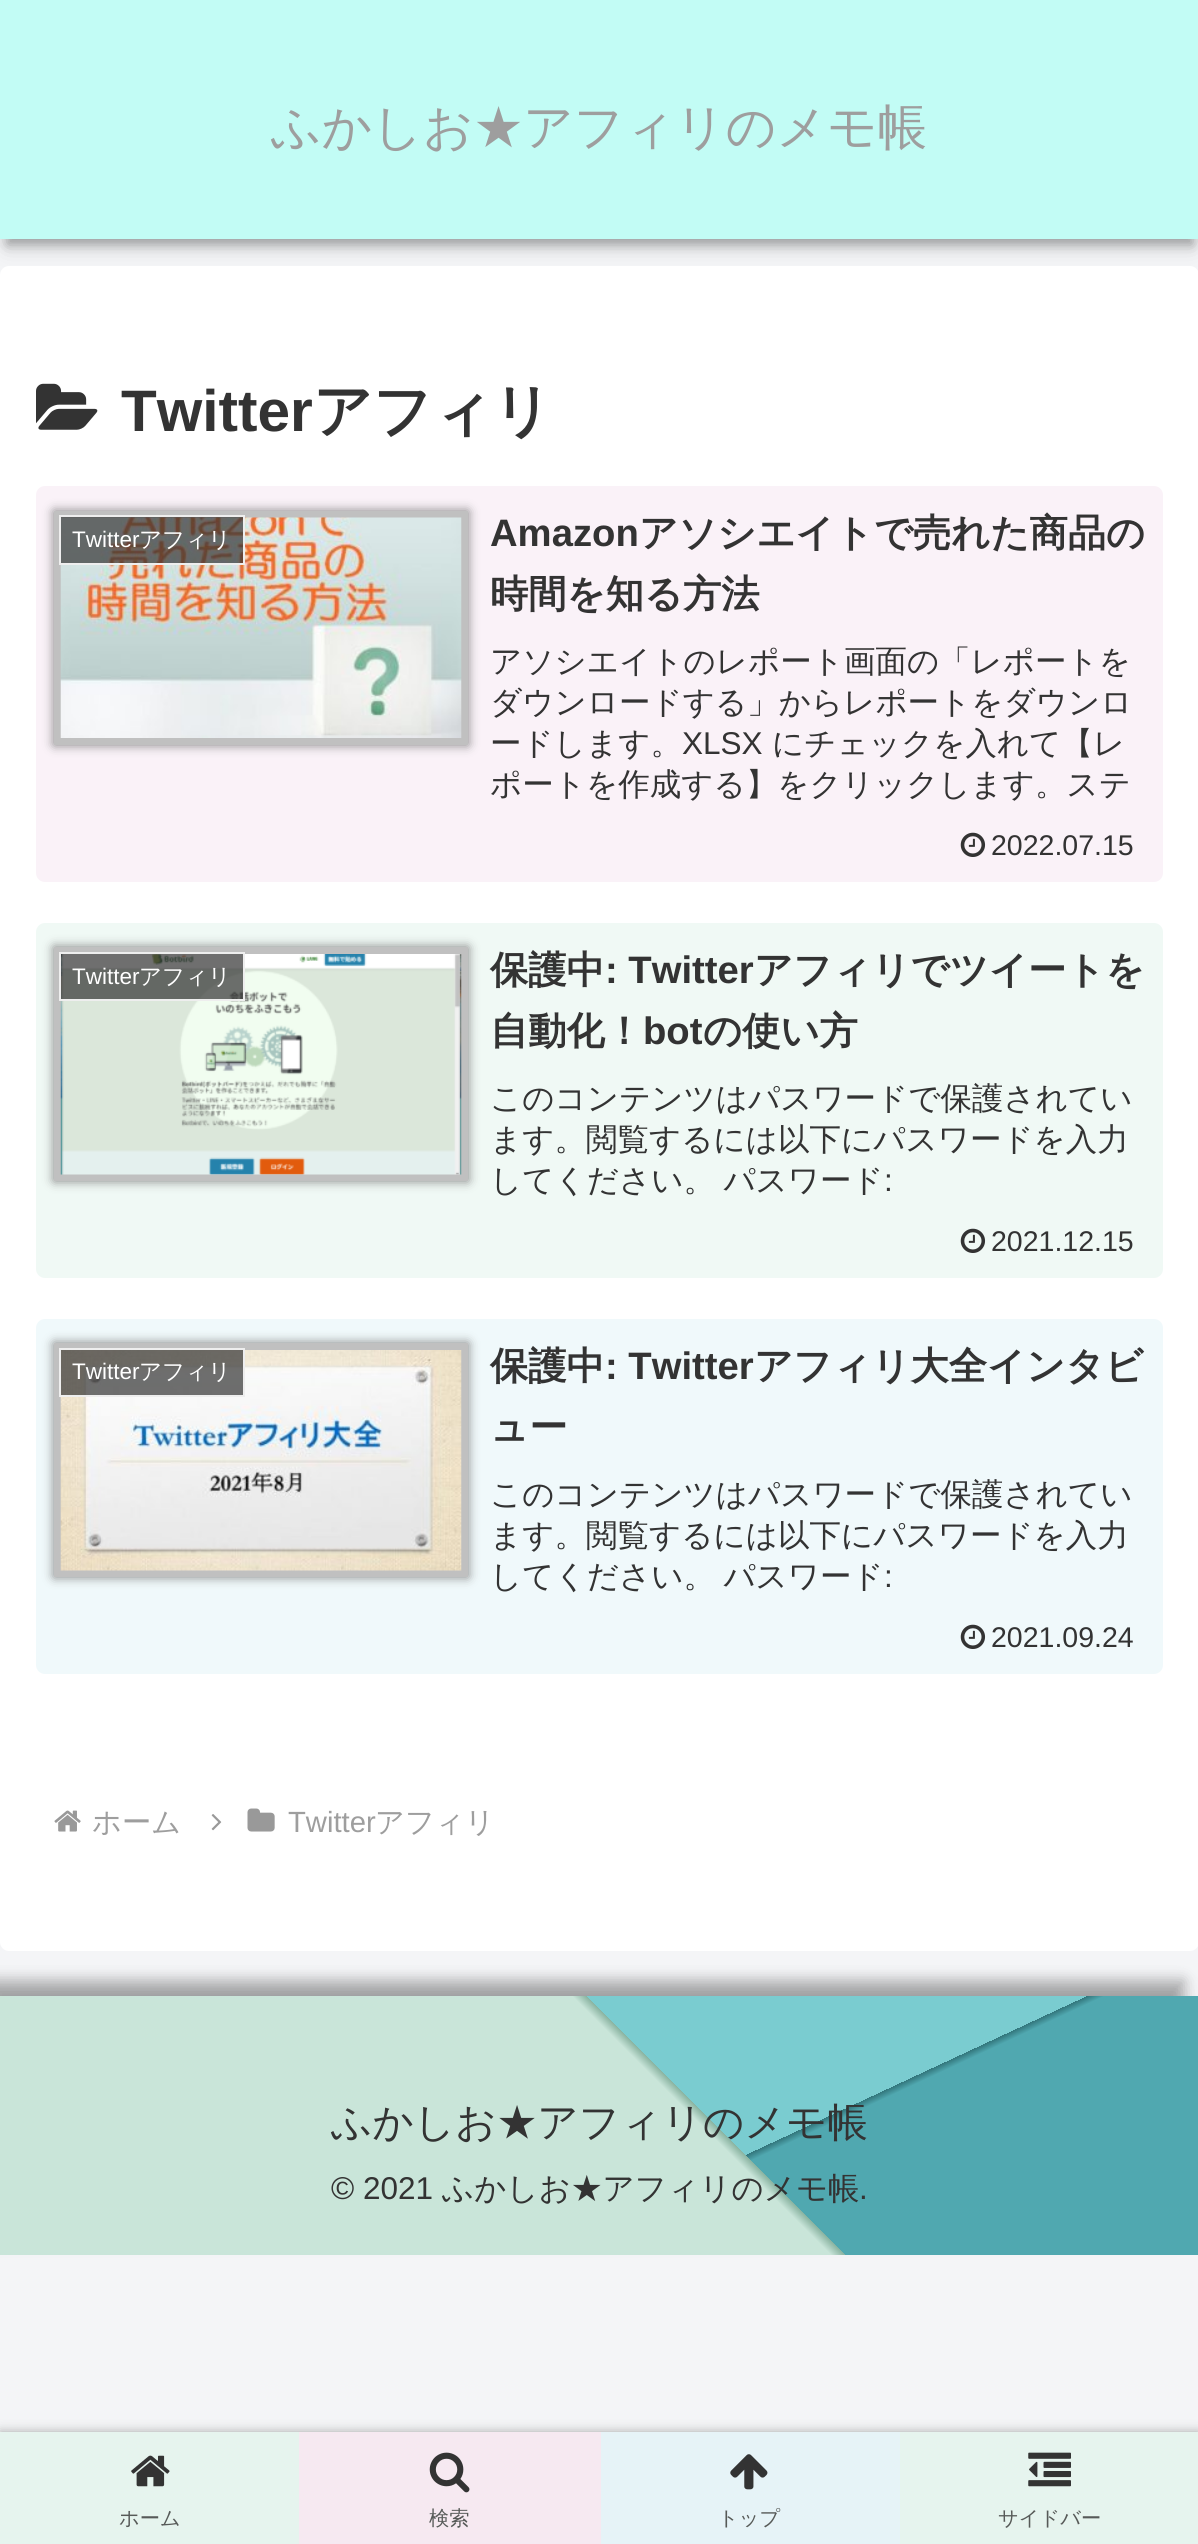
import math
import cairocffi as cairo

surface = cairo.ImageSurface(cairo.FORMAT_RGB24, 1198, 2544)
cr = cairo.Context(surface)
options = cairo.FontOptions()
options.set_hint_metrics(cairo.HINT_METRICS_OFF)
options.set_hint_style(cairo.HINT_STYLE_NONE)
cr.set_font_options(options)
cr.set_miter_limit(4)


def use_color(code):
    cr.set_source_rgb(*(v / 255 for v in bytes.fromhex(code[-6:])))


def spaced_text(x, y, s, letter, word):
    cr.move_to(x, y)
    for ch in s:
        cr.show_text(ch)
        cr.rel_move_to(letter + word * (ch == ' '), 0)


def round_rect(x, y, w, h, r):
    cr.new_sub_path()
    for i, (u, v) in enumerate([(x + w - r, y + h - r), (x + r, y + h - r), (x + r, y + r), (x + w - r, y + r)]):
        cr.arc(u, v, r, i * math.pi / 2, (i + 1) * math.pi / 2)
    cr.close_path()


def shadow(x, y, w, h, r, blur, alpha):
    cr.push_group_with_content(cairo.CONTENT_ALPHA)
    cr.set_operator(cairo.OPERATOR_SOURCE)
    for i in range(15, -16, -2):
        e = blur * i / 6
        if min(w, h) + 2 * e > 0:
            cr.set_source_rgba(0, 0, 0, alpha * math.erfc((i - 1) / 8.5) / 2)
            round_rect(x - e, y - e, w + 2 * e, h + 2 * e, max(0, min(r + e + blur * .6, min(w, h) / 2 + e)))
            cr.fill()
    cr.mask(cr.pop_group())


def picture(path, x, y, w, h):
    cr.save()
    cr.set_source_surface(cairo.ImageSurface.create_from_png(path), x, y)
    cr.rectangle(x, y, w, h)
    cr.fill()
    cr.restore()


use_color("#f4f5f7")
cr.paint()
use_color("#000000")
shadow(7, 20, 1186, 225, 0, 11, 0.18)
shadow(7, 20, 1186, 225, 0, 5.5, 0.24)
use_color("#c2fcf5")
cr.rectangle(0, 0, 1198, 239)
cr.fill()
cr.select_font_face("WenQuanYi Zen Hei Medium")
cr.set_font_size(49.5)
use_color("#9e9e9e")
cr.move_to(271, 144)
cr.show_text("ふかしお★アフィリのメモ帳")
use_color("#ffffff")
round_rect(0, 266, 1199, 1685, 9)
cr.fill()
picture("img1.png", 36, 383, 62, 47)
cr.select_font_face("Liberation Sans", cairo.FONT_SLANT_NORMAL, cairo.FONT_WEIGHT_BOLD)
cr.set_font_size(58.5)
use_color("#333333")
cr.move_to(121, 431)
cr.show_text("Twitter")
cr.select_font_face("WenQuanYi Zen Hei", cairo.FONT_SLANT_NORMAL, cairo.FONT_WEIGHT_BOLD)
cr.move_to(313, 431)
cr.show_text("アフィリ")
use_color("#faf2f8")
round_rect(36, 486, 1127, 396, 9)
cr.fill()
use_color("#808080")
shadow(54, 511, 414, 234, 0, 5.5, 1)
cr.rectangle(57.5, 514.5, 407, 227)
use_color("#c0c0c0")
cr.set_line_width(7)
cr.stroke()
picture("img2.png", 60, 517, 402, 221)
cr.set_source_rgba(0.2, 0.2, 0.2, 0.7)
cr.rectangle(60, 516, 184, 48)
cr.fill_preserve()
use_color("#eeeeee")
cr.set_line_width(2)
cr.stroke()
cr.select_font_face("Liberation Sans")
cr.set_font_size(22.5)
use_color("#ffffff")
cr.move_to(72, 547)
cr.show_text("Twitter")
cr.select_font_face("WenQuanYi Zen Hei Medium")
cr.move_to(139, 547)
cr.show_text("アフィリ")
cr.select_font_face("Liberation Sans", cairo.FONT_SLANT_NORMAL, cairo.FONT_WEIGHT_BOLD)
cr.set_font_size(38.25)
use_color("#333333")
cr.move_to(490, 546)
cr.show_text("Amazon")
cr.select_font_face("WenQuanYi Zen Hei", cairo.FONT_SLANT_NORMAL, cairo.FONT_WEIGHT_BOLD)
cr.move_to(639, 546)
cr.show_text("アソシエイトで売れた商品の")
cr.move_to(490, 607)
cr.show_text("時間を知る方法")
cr.select_font_face("WenQuanYi Zen Hei Medium")
cr.set_font_size(31.5)
cr.move_to(490, 672)
cr.show_text("アソシエイトのレポート画面の「レポートを")
cr.move_to(490, 713)
cr.show_text("ダウンロードする」からレポートをダウンロ")
cr.move_to(490, 754)
cr.show_text("ードします。")
cr.select_font_face("Liberation Sans")
cr.move_to(682, 754)
cr.show_text("XLSX")
cr.select_font_face("WenQuanYi Zen Hei Medium")
cr.move_to(772, 754)
cr.show_text("にチェックを入れて【レ")
cr.move_to(490, 795)
cr.show_text("ポートを作成する】をクリックします。ステ")
picture("img3.png", 960, 832, 26, 25)
cr.select_font_face("Liberation Sans")
cr.set_font_size(28.5)
cr.move_to(991, 855)
cr.show_text("2022.07.15")
use_color("#f0f9f5")
round_rect(36, 923, 1127, 355, 9)
cr.fill()
use_color("#808080")
shadow(54, 947, 414, 234, 0, 5.5, 1)
cr.rectangle(57.5, 950.5, 407, 227)
use_color("#c0c0c0")
cr.set_line_width(7)
cr.stroke()
picture("img4.png", 60, 954, 402, 221)
cr.set_source_rgba(0.2, 0.2, 0.2, 0.7)
cr.rectangle(60, 953, 184, 47)
cr.fill_preserve()
use_color("#eeeeee")
cr.set_line_width(2)
cr.stroke()
cr.set_font_size(22.5)
use_color("#ffffff")
cr.move_to(72, 984)
cr.show_text("Twitter")
cr.select_font_face("WenQuanYi Zen Hei Medium")
cr.move_to(139, 984)
cr.show_text("アフィリ")
cr.select_font_face("WenQuanYi Zen Hei", cairo.FONT_SLANT_NORMAL, cairo.FONT_WEIGHT_BOLD)
cr.set_font_size(38.25)
use_color("#333333")
cr.move_to(490, 983)
cr.show_text("保護中")
cr.select_font_face("Liberation Sans", cairo.FONT_SLANT_NORMAL, cairo.FONT_WEIGHT_BOLD)
cr.move_to(605, 983)
cr.show_text(": Twitter")
cr.select_font_face("WenQuanYi Zen Hei", cairo.FONT_SLANT_NORMAL, cairo.FONT_WEIGHT_BOLD)
cr.move_to(754, 983)
cr.show_text("アフィリでツイートを")
cr.move_to(490, 1044)
cr.show_text("自動化！")
cr.select_font_face("Liberation Sans", cairo.FONT_SLANT_NORMAL, cairo.FONT_WEIGHT_BOLD)
cr.move_to(643, 1044)
cr.show_text("bot")
cr.select_font_face("WenQuanYi Zen Hei", cairo.FONT_SLANT_NORMAL, cairo.FONT_WEIGHT_BOLD)
cr.move_to(703, 1044)
cr.show_text("の使い方")
cr.select_font_face("WenQuanYi Zen Hei Medium")
cr.set_font_size(31.5)
cr.move_to(490, 1109)
cr.show_text("このコンテンツはパスワードで保護されてい")
cr.move_to(490, 1150)
cr.show_text("ます。閲覧するには以下にパスワードを入力")
spaced_text(490, 1191, "してください。 パスワード", 0, -1)
cr.select_font_face("Liberation Sans")
cr.move_to(884, 1191)
cr.show_text(":")
picture("img5.png", 960, 1228, 26, 25)
cr.set_font_size(28.5)
cr.move_to(991, 1251)
cr.show_text("2021.12.15")
use_color("#f0f9fb")
round_rect(36, 1319, 1127, 355, 9)
cr.fill()
use_color("#808080")
shadow(54, 1343, 414, 234, 0, 5.5, 1)
cr.rectangle(57.5, 1346.5, 407, 227)
use_color("#c0c0c0")
cr.set_line_width(7)
cr.stroke()
picture("img6.png", 60, 1350, 402, 221)
cr.set_source_rgba(0.2, 0.2, 0.2, 0.7)
cr.rectangle(60, 1349, 184, 47)
cr.fill_preserve()
use_color("#eeeeee")
cr.set_line_width(2)
cr.stroke()
cr.set_font_size(22.5)
use_color("#ffffff")
cr.move_to(72, 1379)
cr.show_text("Twitter")
cr.select_font_face("WenQuanYi Zen Hei Medium")
cr.move_to(139, 1379)
cr.show_text("アフィリ")
cr.select_font_face("WenQuanYi Zen Hei", cairo.FONT_SLANT_NORMAL, cairo.FONT_WEIGHT_BOLD)
cr.set_font_size(38.25)
use_color("#333333")
cr.move_to(490, 1379)
cr.show_text("保護中")
cr.select_font_face("Liberation Sans", cairo.FONT_SLANT_NORMAL, cairo.FONT_WEIGHT_BOLD)
cr.move_to(605, 1379)
cr.show_text(": Twitter")
cr.select_font_face("WenQuanYi Zen Hei", cairo.FONT_SLANT_NORMAL, cairo.FONT_WEIGHT_BOLD)
cr.move_to(754, 1379)
cr.show_text("アフィリ大全インタビ")
cr.move_to(490, 1440)
cr.show_text("ュー")
cr.select_font_face("WenQuanYi Zen Hei Medium")
cr.set_font_size(31.5)
cr.move_to(490, 1505)
cr.show_text("このコンテンツはパスワードで保護されてい")
cr.move_to(490, 1546)
cr.show_text("ます。閲覧するには以下にパスワードを入力")
spaced_text(490, 1587, "してください。 パスワード", 0, -1)
cr.select_font_face("Liberation Sans")
cr.move_to(884, 1587)
cr.show_text(":")
picture("img7.png", 960, 1624, 26, 25)
cr.set_font_size(28.5)
cr.move_to(991, 1647)
cr.show_text("2021.09.24")
picture("img8.png", 54, 1810, 27, 22)
cr.select_font_face("WenQuanYi Zen Hei Medium")
cr.set_font_size(29.25)
use_color("#9e9e9e")
cr.move_to(92, 1832)
cr.show_text("ホーム")
picture("img9.png", 211, 1814, 11, 17)
picture("img10.png", 247, 1808, 28, 24)
cr.select_font_face("Liberation Sans")
cr.move_to(288, 1832)
cr.show_text("Twitter")
cr.select_font_face("WenQuanYi Zen Hei Medium")
cr.move_to(375, 1832)
cr.show_text("アフィリ")
use_color("#000000")
shadow(-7, 1989, 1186, 245, 0, 11, 0.18)
shadow(-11, 1980, 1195, 254, 0, 7, 0.24)
gradient = cairo.LinearGradient(756, 2461, 443, 1789)
gradient.add_color_stop_rgba(0, 0.314, 0.659, 0.69, 1)
gradient.add_color_stop_rgba(0.37, 0.314, 0.659, 0.69, 1)
gradient.add_color_stop_rgba(0.38, 0.196, 0.459, 0.482, 1)
gradient.add_color_stop_rgba(0.38, 0.478, 0.8, 0.816, 1)
cr.set_source(gradient)
cr.rectangle(587, 1996, 611, 259)
cr.fill()
gradient = cairo.LinearGradient(235, 2490, 964, 1761)
gradient.add_color_stop_rgba(0, 0.788, 0.898, 0.851, 1)
gradient.add_color_stop_rgba(0.57, 0.788, 0.898, 0.851, 1)
gradient.add_color_stop_rgba(0.58, 0.533, 0.698, 0.627, 1)
gradient.add_color_stop_rgba(0.58, 0.533, 0.698, 0.627, 0)
cr.set_source(gradient)
cr.rectangle(0, 1996, 845, 259)
cr.fill()
cr.set_font_size(40.5)
use_color("#333333")
cr.move_to(331, 2136)
cr.show_text("ふかしお★アフィリのメモ帳")
cr.select_font_face("Liberation Sans")
cr.set_font_size(31.5)
cr.move_to(331, 2199)
cr.show_text("© 2021")
cr.select_font_face("WenQuanYi Zen Hei Medium")
cr.move_to(442, 2199)
cr.show_text("ふかしお★アフィリのメモ帳")
cr.select_font_face("Liberation Sans")
cr.move_to(859, 2199)
cr.show_text(".")
use_color("#a9a9a9")
shadow(0, 2432, 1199, 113, 0, 5.5, 1)
use_color("#e6f4ee")
cr.rectangle(0, 2432, 299, 112)
cr.fill()
picture("img11.png", 131, 2455, 39, 32)
cr.select_font_face("WenQuanYi Zen Hei Medium")
cr.set_font_size(20.25)
use_color("#575a58")
cr.move_to(119, 2525)
cr.show_text("ホーム")
use_color("#f6e9f1")
cr.rectangle(299, 2432, 302, 112)
cr.fill()
picture("img12.png", 429, 2452, 41, 41)
use_color("#575a58")
cr.move_to(429, 2525)
cr.show_text("検索")
use_color("#e6f3f7")
cr.rectangle(601, 2432, 299, 112)
cr.fill()
picture("img13.png", 730, 2454, 38, 36)
use_color("#575a58")
cr.move_to(718, 2525)
cr.show_text("トップ")
use_color("#e6f4ee")
cr.rectangle(900, 2432, 298, 112)
cr.fill()
picture("img14.png", 1028, 2452, 43, 35)
use_color("#575a58")
cr.move_to(998, 2525)
cr.show_text("サイドバー")
surface.write_to_png("result.png")
